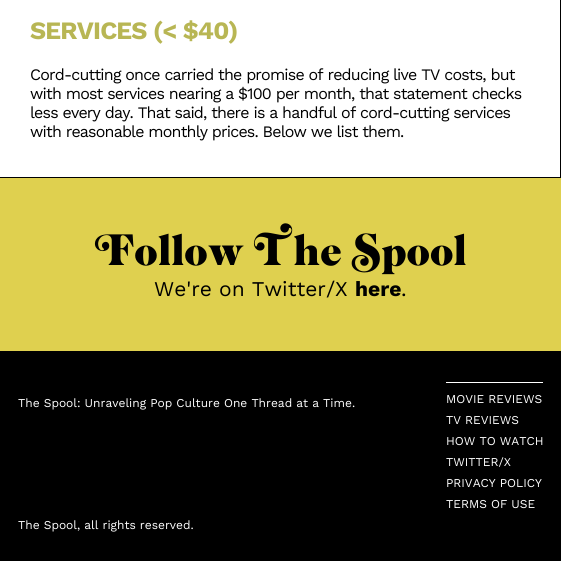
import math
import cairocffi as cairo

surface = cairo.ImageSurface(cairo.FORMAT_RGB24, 561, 561)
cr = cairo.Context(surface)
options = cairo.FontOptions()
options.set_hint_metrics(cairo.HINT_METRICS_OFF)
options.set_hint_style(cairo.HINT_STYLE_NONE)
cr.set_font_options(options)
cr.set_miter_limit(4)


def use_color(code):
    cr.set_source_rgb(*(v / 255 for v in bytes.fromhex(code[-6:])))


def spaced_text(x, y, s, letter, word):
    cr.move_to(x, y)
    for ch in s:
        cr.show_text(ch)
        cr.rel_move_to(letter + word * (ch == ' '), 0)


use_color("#ffffff")
cr.paint()
use_color("#000000")
cr.rectangle(560, 0, 1, 178)
cr.fill()
cr.rectangle(0, 177, 561, 1)
cr.fill()
cr.select_font_face("Work Sans", cairo.FONT_SLANT_NORMAL, cairo.FONT_WEIGHT_BOLD)
cr.set_font_size(25)
use_color("#b8b654")
spaced_text(30, 39, "SERVICES (< $40)", -0.8, 0)
cr.select_font_face("Work Sans")
cr.set_font_size(16)
use_color("#000000")
spaced_text(30, 80, "Cord-cutting once carried the promise of reducing live TV costs, but", -0.8, 0)
spaced_text(30, 99, "with most services nearing a $100 per month, that statement checks", -0.8, 0)
spaced_text(30, 118, "less every day. That said, there is a handful of cord-cutting services", -0.8, 0)
spaced_text(30, 137, "with reasonable monthly prices. Below we list them.", -0.8, 0)
use_color("#dfd04f")
cr.rectangle(0, 178, 561, 173)
cr.fill()
cr.select_font_face("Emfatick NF")
cr.set_font_size(58)
use_color("#000000")
spaced_text(94, 265, "Follow The Spool", 0, -7)
cr.select_font_face("Work Sans")
cr.set_font_size(21)
cr.move_to(154, 296)
cr.show_text("We're on Twitter/X")
cr.select_font_face("Work Sans", cairo.FONT_SLANT_NORMAL, cairo.FONT_WEIGHT_BOLD)
cr.move_to(355, 296)
cr.show_text("here")
cr.select_font_face("Work Sans")
cr.move_to(401, 296)
cr.show_text(".")
cr.rectangle(0, 351, 561, 210)
cr.fill()
cr.set_font_size(12)
use_color("#ffffff")
cr.move_to(18, 407)
cr.show_text("The Spool: Unraveling Pop Culture One Thread at a Time.")
cr.move_to(18, 529)
cr.show_text("The Spool, all rights reserved.")
cr.rectangle(446, 382, 97, 1)
cr.fill()
cr.move_to(446, 403)
cr.show_text("MOVIE REVIEWS")
cr.move_to(446, 424)
cr.show_text("TV REVIEWS")
cr.move_to(446, 445)
cr.show_text("HOW TO WATCH")
cr.move_to(446, 466)
cr.show_text("TWITTER/X")
cr.move_to(446, 487)
cr.show_text("PRIVACY POLICY")
cr.move_to(446, 508)
cr.show_text("TERMS OF USE")
surface.write_to_png("result.png")
